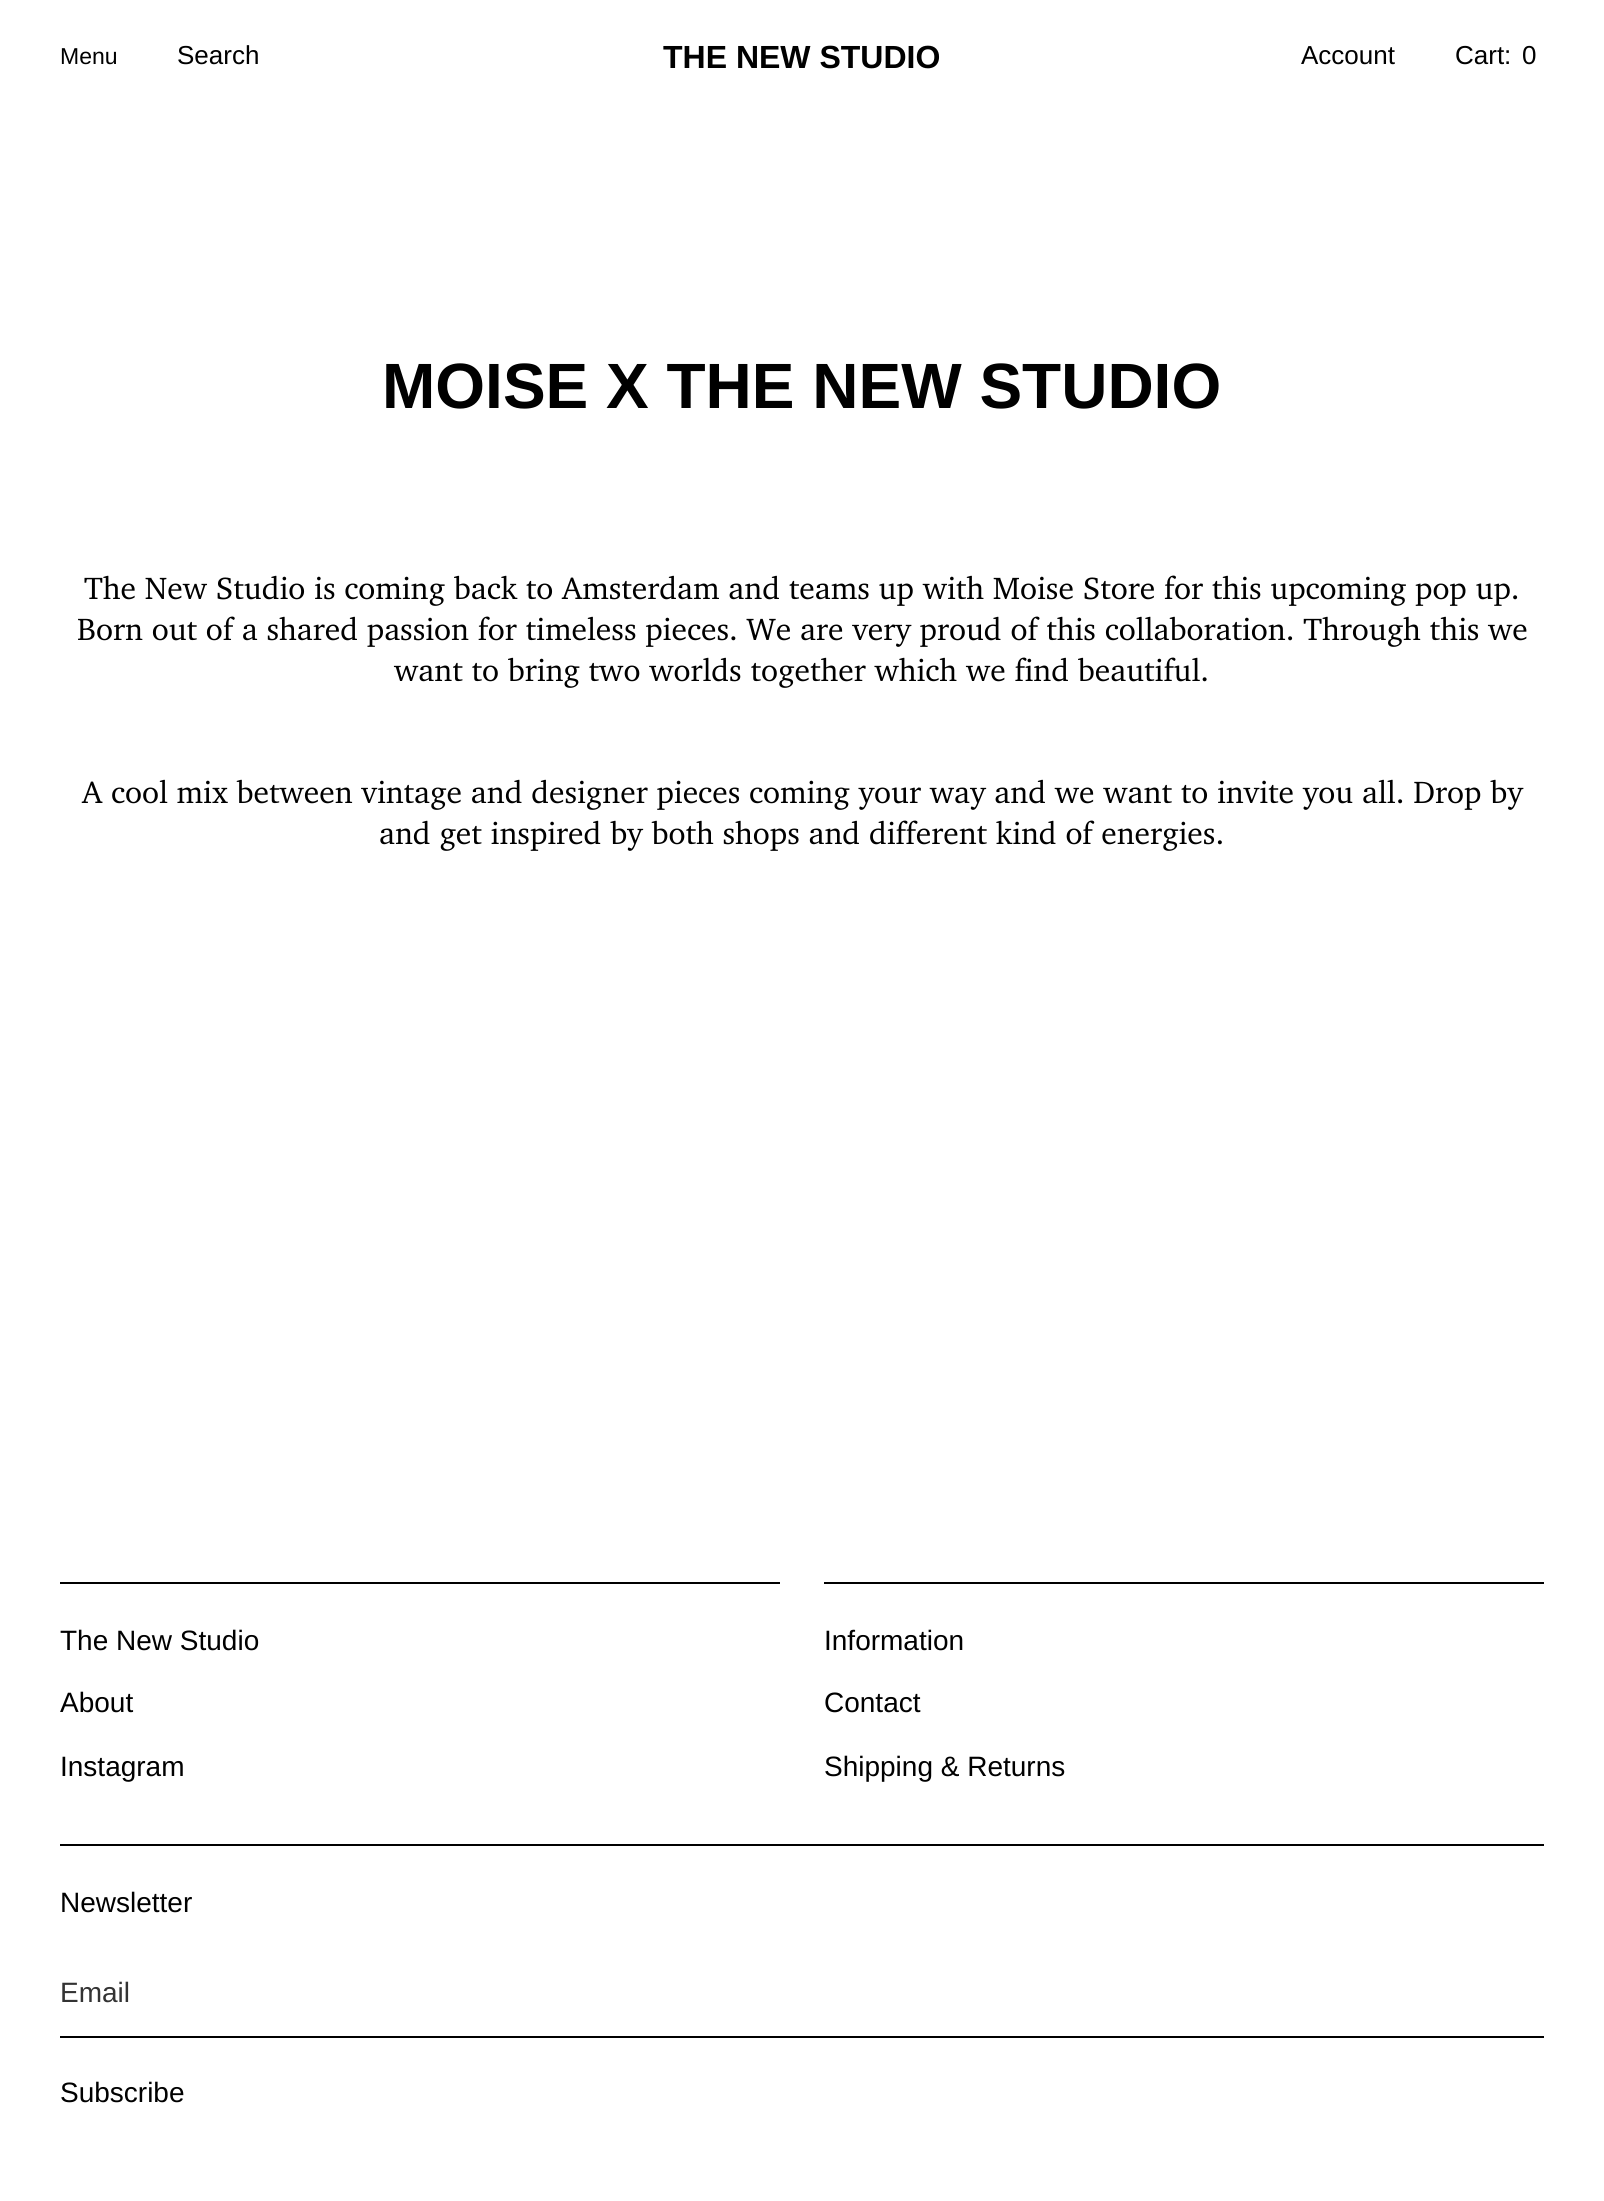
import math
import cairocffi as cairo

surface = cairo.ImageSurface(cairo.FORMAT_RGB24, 1604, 2201)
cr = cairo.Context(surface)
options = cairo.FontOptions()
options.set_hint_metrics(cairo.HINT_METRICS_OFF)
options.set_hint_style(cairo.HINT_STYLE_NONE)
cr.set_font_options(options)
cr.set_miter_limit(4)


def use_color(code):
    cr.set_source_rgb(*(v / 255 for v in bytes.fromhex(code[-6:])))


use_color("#ffffff")
cr.paint()
cr.select_font_face("Liberation Sans")
cr.set_font_size(23)
use_color("#000000")
cr.move_to(60, 64)
cr.show_text("Menu")
cr.set_font_size(26)
cr.move_to(177, 64)
cr.show_text("Search")
cr.select_font_face("Liberation Sans", cairo.FONT_SLANT_NORMAL, cairo.FONT_WEIGHT_BOLD)
cr.set_font_size(32)
cr.move_to(663, 68)
cr.show_text("THE NEW STUDIO")
cr.select_font_face("Liberation Sans")
cr.set_font_size(26)
cr.move_to(1301, 64)
cr.show_text("Account")
cr.move_to(1455, 64)
cr.show_text("Cart:")
cr.move_to(1522, 64)
cr.show_text("0")
cr.select_font_face("Liberation Sans", cairo.FONT_SLANT_NORMAL, cairo.FONT_WEIGHT_BOLD)
cr.set_font_size(64)
cr.move_to(382, 408)
cr.show_text("MOISE X THE NEW STUDIO")
cr.select_font_face("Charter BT")
cr.set_font_size(31.5)
cr.move_to(84, 599)
cr.show_text("The New Studio is coming back to Amsterdam and teams up with Moise Store for this upcoming pop up.")
cr.move_to(77, 640)
cr.show_text("Born out of a shared passion for timeless pieces. We are very proud of this collaboration. Through this we")
cr.move_to(394, 681)
cr.show_text("want to bring two worlds together which we find beautiful.")
cr.move_to(82, 803)
cr.show_text("A cool mix between vintage and designer pieces coming your way and we want to invite you all. Drop by")
cr.move_to(379, 844)
cr.show_text("and get inspired by both shops and different kind of energies.")
cr.rectangle(60, 1582, 720, 2)
cr.fill()
cr.select_font_face("Liberation Sans")
cr.set_font_size(28)
cr.move_to(60, 1650)
cr.show_text("The New Studio")
cr.move_to(60, 1712)
cr.show_text("About")
cr.move_to(60, 1776)
cr.show_text("Instagram")
cr.rectangle(824, 1582, 720, 2)
cr.fill()
cr.move_to(824, 1650)
cr.show_text("Information")
cr.move_to(824, 1712)
cr.show_text("Contact")
cr.move_to(824, 1776)
cr.show_text("Shipping & Returns")
cr.rectangle(60, 1844, 1484, 2)
cr.fill()
cr.move_to(60, 1912)
cr.show_text("Newsletter")
cr.rectangle(60, 2036, 1484, 2)
cr.fill()
use_color("#333333")
cr.move_to(60, 2002)
cr.show_text("Email")
use_color("#000000")
cr.move_to(60, 2102)
cr.show_text("Subscribe")
surface.write_to_png("result.png")
